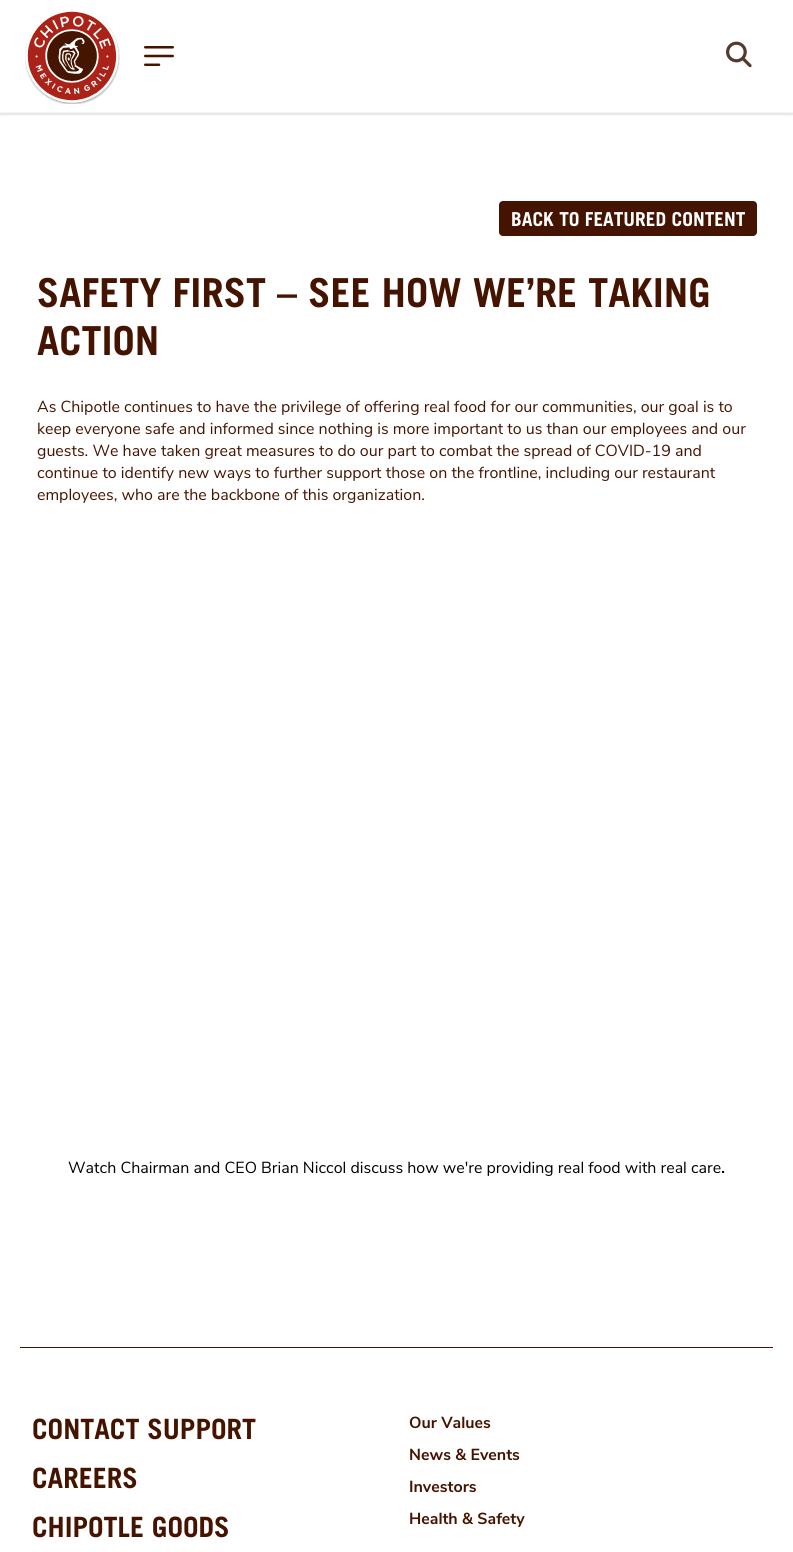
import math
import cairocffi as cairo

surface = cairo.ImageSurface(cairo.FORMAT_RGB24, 793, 1552)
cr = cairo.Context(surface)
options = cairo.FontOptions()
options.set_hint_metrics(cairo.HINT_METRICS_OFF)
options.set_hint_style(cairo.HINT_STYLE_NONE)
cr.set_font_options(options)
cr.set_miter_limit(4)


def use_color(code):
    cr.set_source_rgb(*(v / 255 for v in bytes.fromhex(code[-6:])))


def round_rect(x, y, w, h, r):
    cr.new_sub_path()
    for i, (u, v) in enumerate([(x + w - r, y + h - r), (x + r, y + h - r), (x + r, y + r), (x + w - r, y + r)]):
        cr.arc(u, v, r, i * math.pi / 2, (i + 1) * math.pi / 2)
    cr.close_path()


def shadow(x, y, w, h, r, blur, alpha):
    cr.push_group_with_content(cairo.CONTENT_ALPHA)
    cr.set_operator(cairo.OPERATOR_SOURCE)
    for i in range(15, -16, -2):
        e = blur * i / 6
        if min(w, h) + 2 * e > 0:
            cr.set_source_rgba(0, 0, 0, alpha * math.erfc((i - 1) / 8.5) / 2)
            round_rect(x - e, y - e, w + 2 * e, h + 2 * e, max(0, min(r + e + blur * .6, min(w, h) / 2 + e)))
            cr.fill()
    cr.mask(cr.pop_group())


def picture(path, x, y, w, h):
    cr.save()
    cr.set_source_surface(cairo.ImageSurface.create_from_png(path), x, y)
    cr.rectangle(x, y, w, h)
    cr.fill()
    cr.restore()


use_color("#ffffff")
cr.paint()
cr.save()
cr.rectangle(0, 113, 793, 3)
cr.clip()
use_color("#000000")
shadow(0, 0, 793, 113, 0, 2.5, 0.25)
cr.restore()
use_color("#f7f7f7")
cr.rectangle(0, 112, 793, 1)
cr.fill()
picture("img1.png", 25, 11, 95, 93)
picture("img2.png", 144, 46, 30, 20)
picture("img3.png", 726, 41, 26, 27)
use_color("#451400")
round_rect(499, 201, 258, 35, 4)
cr.fill()
cr.select_font_face("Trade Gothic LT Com", cairo.FONT_SLANT_NORMAL, cairo.FONT_WEIGHT_BOLD)
cr.set_font_size(19.25)
use_color("#ffffff")
cr.move_to(511, 226)
cr.show_text("BACK TO FEATURED CONTENT")
cr.set_font_size(40)
use_color("#451400")
cr.move_to(37, 307)
cr.show_text("SAFETY FIRST – SEE HOW WE’RE TAKING")
cr.move_to(37, 355)
cr.show_text("ACTION")
cr.select_font_face("Nunito Sans")
cr.set_font_size(16)
cr.move_to(37, 412)
cr.show_text("As Chipotle continues to have the privilege of offering real food for our communities, our goal is to")
cr.move_to(37, 434)
cr.show_text("keep everyone safe and informed since nothing is more important to us than our employees and our")
cr.move_to(37, 456)
cr.show_text("guests. We have taken great measures to do our part to combat the spread of COVID-19 and")
cr.move_to(37, 478)
cr.show_text("continue to identify new ways to further support those on the frontline, including our restaurant")
cr.move_to(37, 500)
cr.show_text("employees, who are the backbone of this organization.")
use_color("#000000")
cr.move_to(68, 1173)
cr.show_text("Watch Chairman and CEO Brian Niccol discuss how we're providing real food with real care")
cr.select_font_face("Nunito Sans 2", cairo.FONT_SLANT_NORMAL, cairo.FONT_WEIGHT_BOLD)
cr.move_to(721, 1173)
cr.show_text(".")
use_color("#451400")
cr.rectangle(20, 1347, 753, 1)
cr.fill()
cr.select_font_face("Trade Gothic LT Com", cairo.FONT_SLANT_NORMAL, cairo.FONT_WEIGHT_BOLD)
cr.set_font_size(28)
cr.move_to(32, 1439)
cr.show_text("CONTACT SUPPORT")
cr.move_to(32, 1488)
cr.show_text("CAREERS")
cr.move_to(32, 1537)
cr.show_text("CHIPOTLE GOODS")
cr.select_font_face("Nunito Sans", cairo.FONT_SLANT_NORMAL, cairo.FONT_WEIGHT_BOLD)
cr.set_font_size(16)
cr.move_to(409, 1428)
cr.show_text("Our Values")
cr.move_to(409, 1460)
cr.show_text("News & Events")
cr.move_to(409, 1492)
cr.show_text("Investors")
cr.move_to(409, 1524)
cr.show_text("Health & Safety")
surface.write_to_png("result.png")
